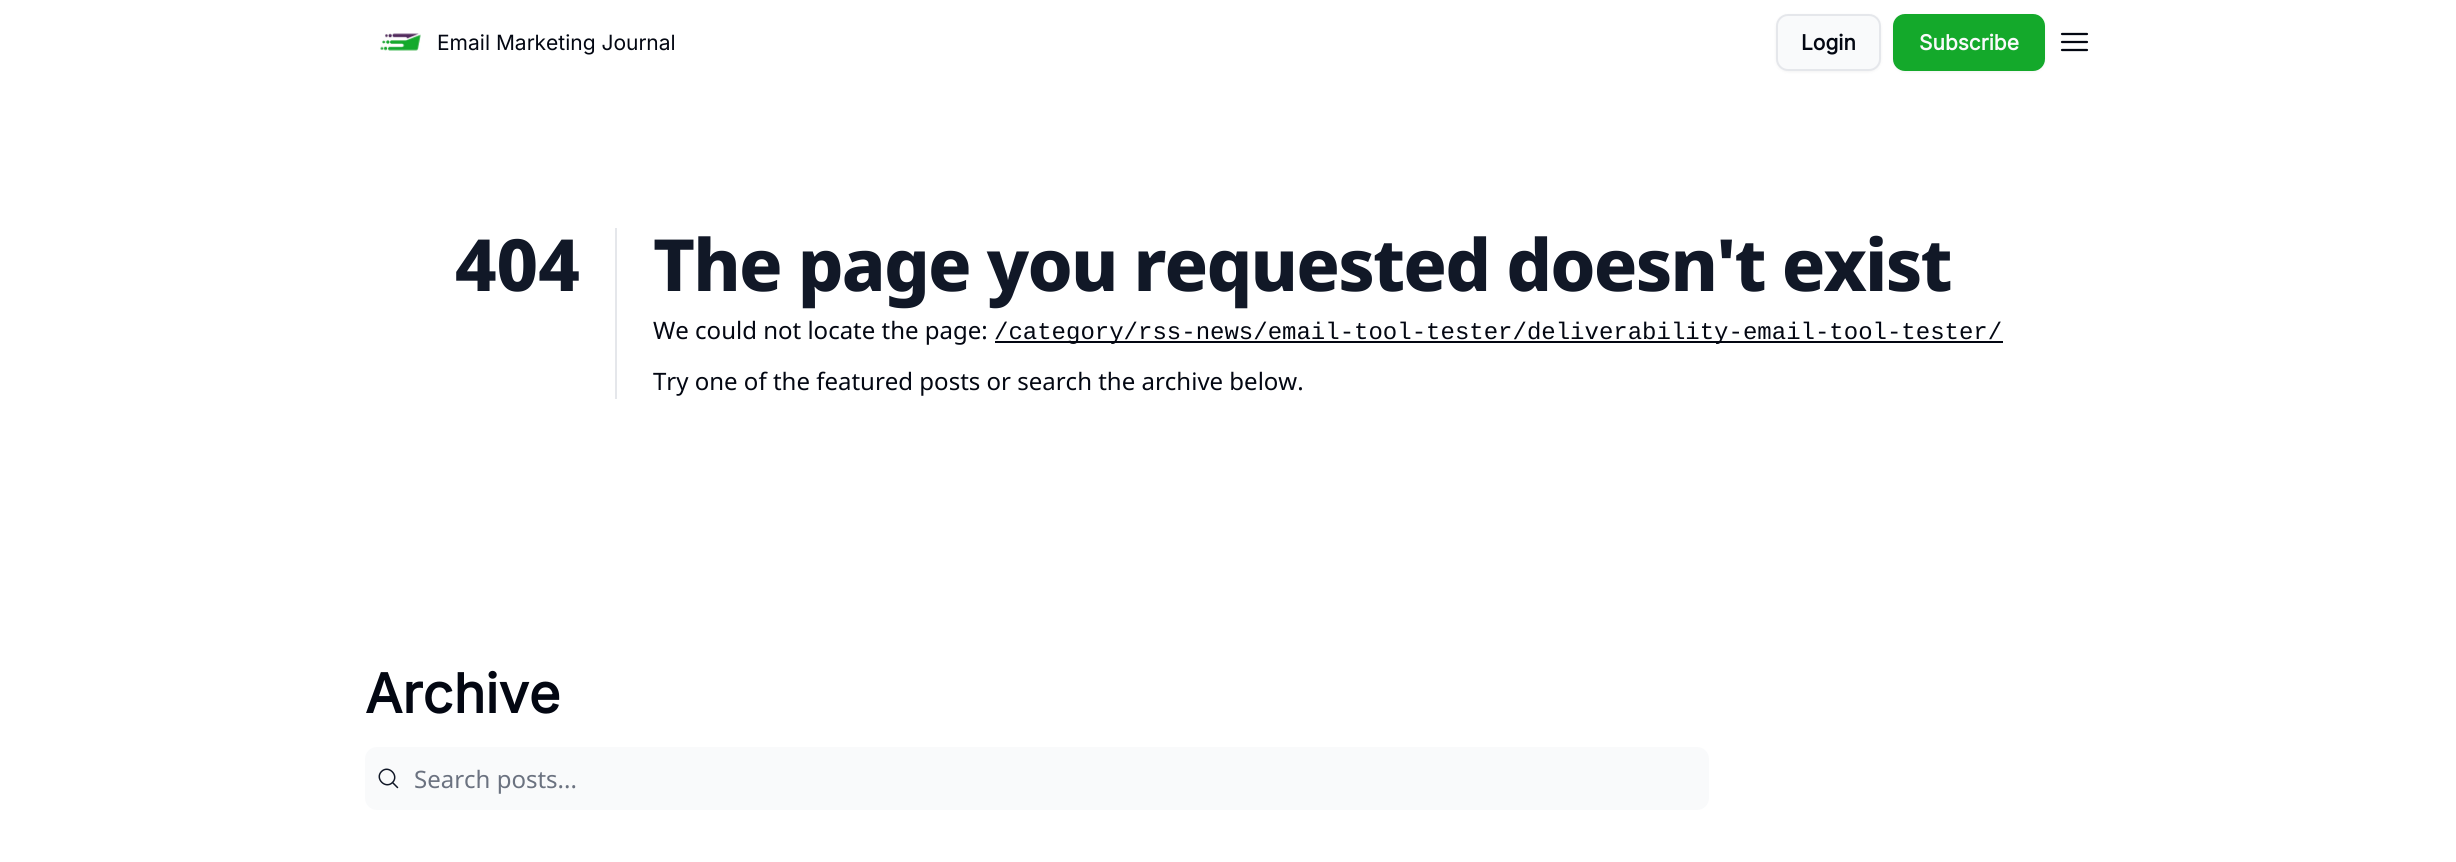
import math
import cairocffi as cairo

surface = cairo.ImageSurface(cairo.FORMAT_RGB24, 2456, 862)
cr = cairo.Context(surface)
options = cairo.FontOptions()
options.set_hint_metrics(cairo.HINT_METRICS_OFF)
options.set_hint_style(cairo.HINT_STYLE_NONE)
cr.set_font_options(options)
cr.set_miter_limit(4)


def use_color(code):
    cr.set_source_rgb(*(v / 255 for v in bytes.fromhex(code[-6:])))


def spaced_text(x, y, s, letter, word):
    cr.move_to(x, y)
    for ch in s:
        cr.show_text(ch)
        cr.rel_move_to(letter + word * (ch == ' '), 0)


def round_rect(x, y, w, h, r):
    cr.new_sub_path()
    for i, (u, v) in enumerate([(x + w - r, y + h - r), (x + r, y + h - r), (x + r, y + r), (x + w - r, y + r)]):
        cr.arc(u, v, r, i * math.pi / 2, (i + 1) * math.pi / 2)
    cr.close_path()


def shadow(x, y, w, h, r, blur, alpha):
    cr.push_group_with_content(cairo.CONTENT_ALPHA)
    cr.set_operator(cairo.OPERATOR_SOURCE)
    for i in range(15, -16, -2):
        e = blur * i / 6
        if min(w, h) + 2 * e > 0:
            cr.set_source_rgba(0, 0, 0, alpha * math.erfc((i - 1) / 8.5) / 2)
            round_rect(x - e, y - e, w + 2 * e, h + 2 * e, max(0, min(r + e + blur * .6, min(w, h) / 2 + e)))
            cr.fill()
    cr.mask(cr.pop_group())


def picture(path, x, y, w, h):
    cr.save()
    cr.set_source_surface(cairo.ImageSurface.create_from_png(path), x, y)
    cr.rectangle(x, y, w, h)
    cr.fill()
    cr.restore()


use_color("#ffffff")
cr.paint()
picture("img1.png", 380, 33, 41, 18)
cr.select_font_face("Inter")
cr.set_font_size(21)
use_color("#030712")
cr.move_to(437, 50)
cr.show_text("Email Marketing Journal")
use_color("#000000")
shadow(1776, 15, 105, 57, 12, 1.5, 0.05)
use_color("#f9fafb")
round_rect(1777, 15, 103, 55, 11)
cr.fill_preserve()
use_color("#e5e7eb")
cr.stroke()
cr.select_font_face("Inter", cairo.FONT_SLANT_NORMAL, cairo.FONT_WEIGHT_BOLD)
use_color("#030712")
cr.move_to(1801, 50)
cr.show_text("Login")
use_color("#000000")
shadow(1893, 15, 152, 57, 12, 1.5, 0.05)
use_color("#14a92b")
round_rect(1894, 15, 150, 55, 11)
cr.fill_preserve()
cr.stroke()
use_color("#f9fafb")
cr.move_to(1919, 50)
cr.show_text("Subscribe")
cr.new_path()
cr.move_to(2062, 34)
cr.line_to(2087, 34)
cr.move_to(2062, 42)
cr.line_to(2087, 42)
cr.move_to(2062, 50)
cr.line_to(2087, 50)
use_color("#030712")
cr.set_line_width(2.2)
cr.set_line_cap(cairo.LINE_CAP_ROUND)
cr.set_line_join(cairo.LINE_JOIN_ROUND)
cr.stroke()
cr.select_font_face("Noto Sans ExtraBold")
cr.set_font_size(72)
use_color("#111827")
cr.move_to(455, 291)
cr.show_text("404")
use_color("#e5e7eb")
cr.rectangle(615, 228, 2, 171)
cr.fill()
use_color("#111827")
spaced_text(653, 291, "The page you requested doesn't exist", -1.8, 0)
cr.select_font_face("Noto Sans")
cr.set_font_size(24)
use_color("#030712")
cr.move_to(653, 339)
cr.show_text("We could not locate the page:")
cr.rectangle(995, 341, 1008, 2)
cr.fill()
cr.select_font_face("Liberation Mono")
cr.move_to(994, 339)
cr.show_text("/category/rss-news/email-tool-tester/deliverability-email-tool-tester/")
cr.select_font_face("Noto Sans")
cr.move_to(653, 390)
cr.show_text("Try one of the featured posts or search the archive below.")
cr.select_font_face("Inter", cairo.FONT_SLANT_NORMAL, cairo.FONT_WEIGHT_BOLD)
cr.set_font_size(54)
cr.move_to(365, 713)
cr.show_text("Archive")
use_color("#f9fafb")
round_rect(365, 747, 1344, 63, 12)
cr.fill()
cr.new_path()
cr.move_to(397.5, 787.5)
cr.line_to(392.5, 782.5)
cr.move_to(392.5, 782.5)
cr.curve_to(399.5, 775.5, 388.5, 764.5, 381.5, 771.5)
cr.curve_to(374.5, 778.5, 385.5, 789.5, 392.5, 782.5)
cr.close_path()
use_color("#111827")
cr.set_line_width(1.5)
cr.stroke()
cr.select_font_face("Noto Sans")
cr.set_font_size(24)
use_color("#6b7280")
cr.move_to(414, 788)
cr.show_text("Search posts...")
surface.write_to_png("result.png")
